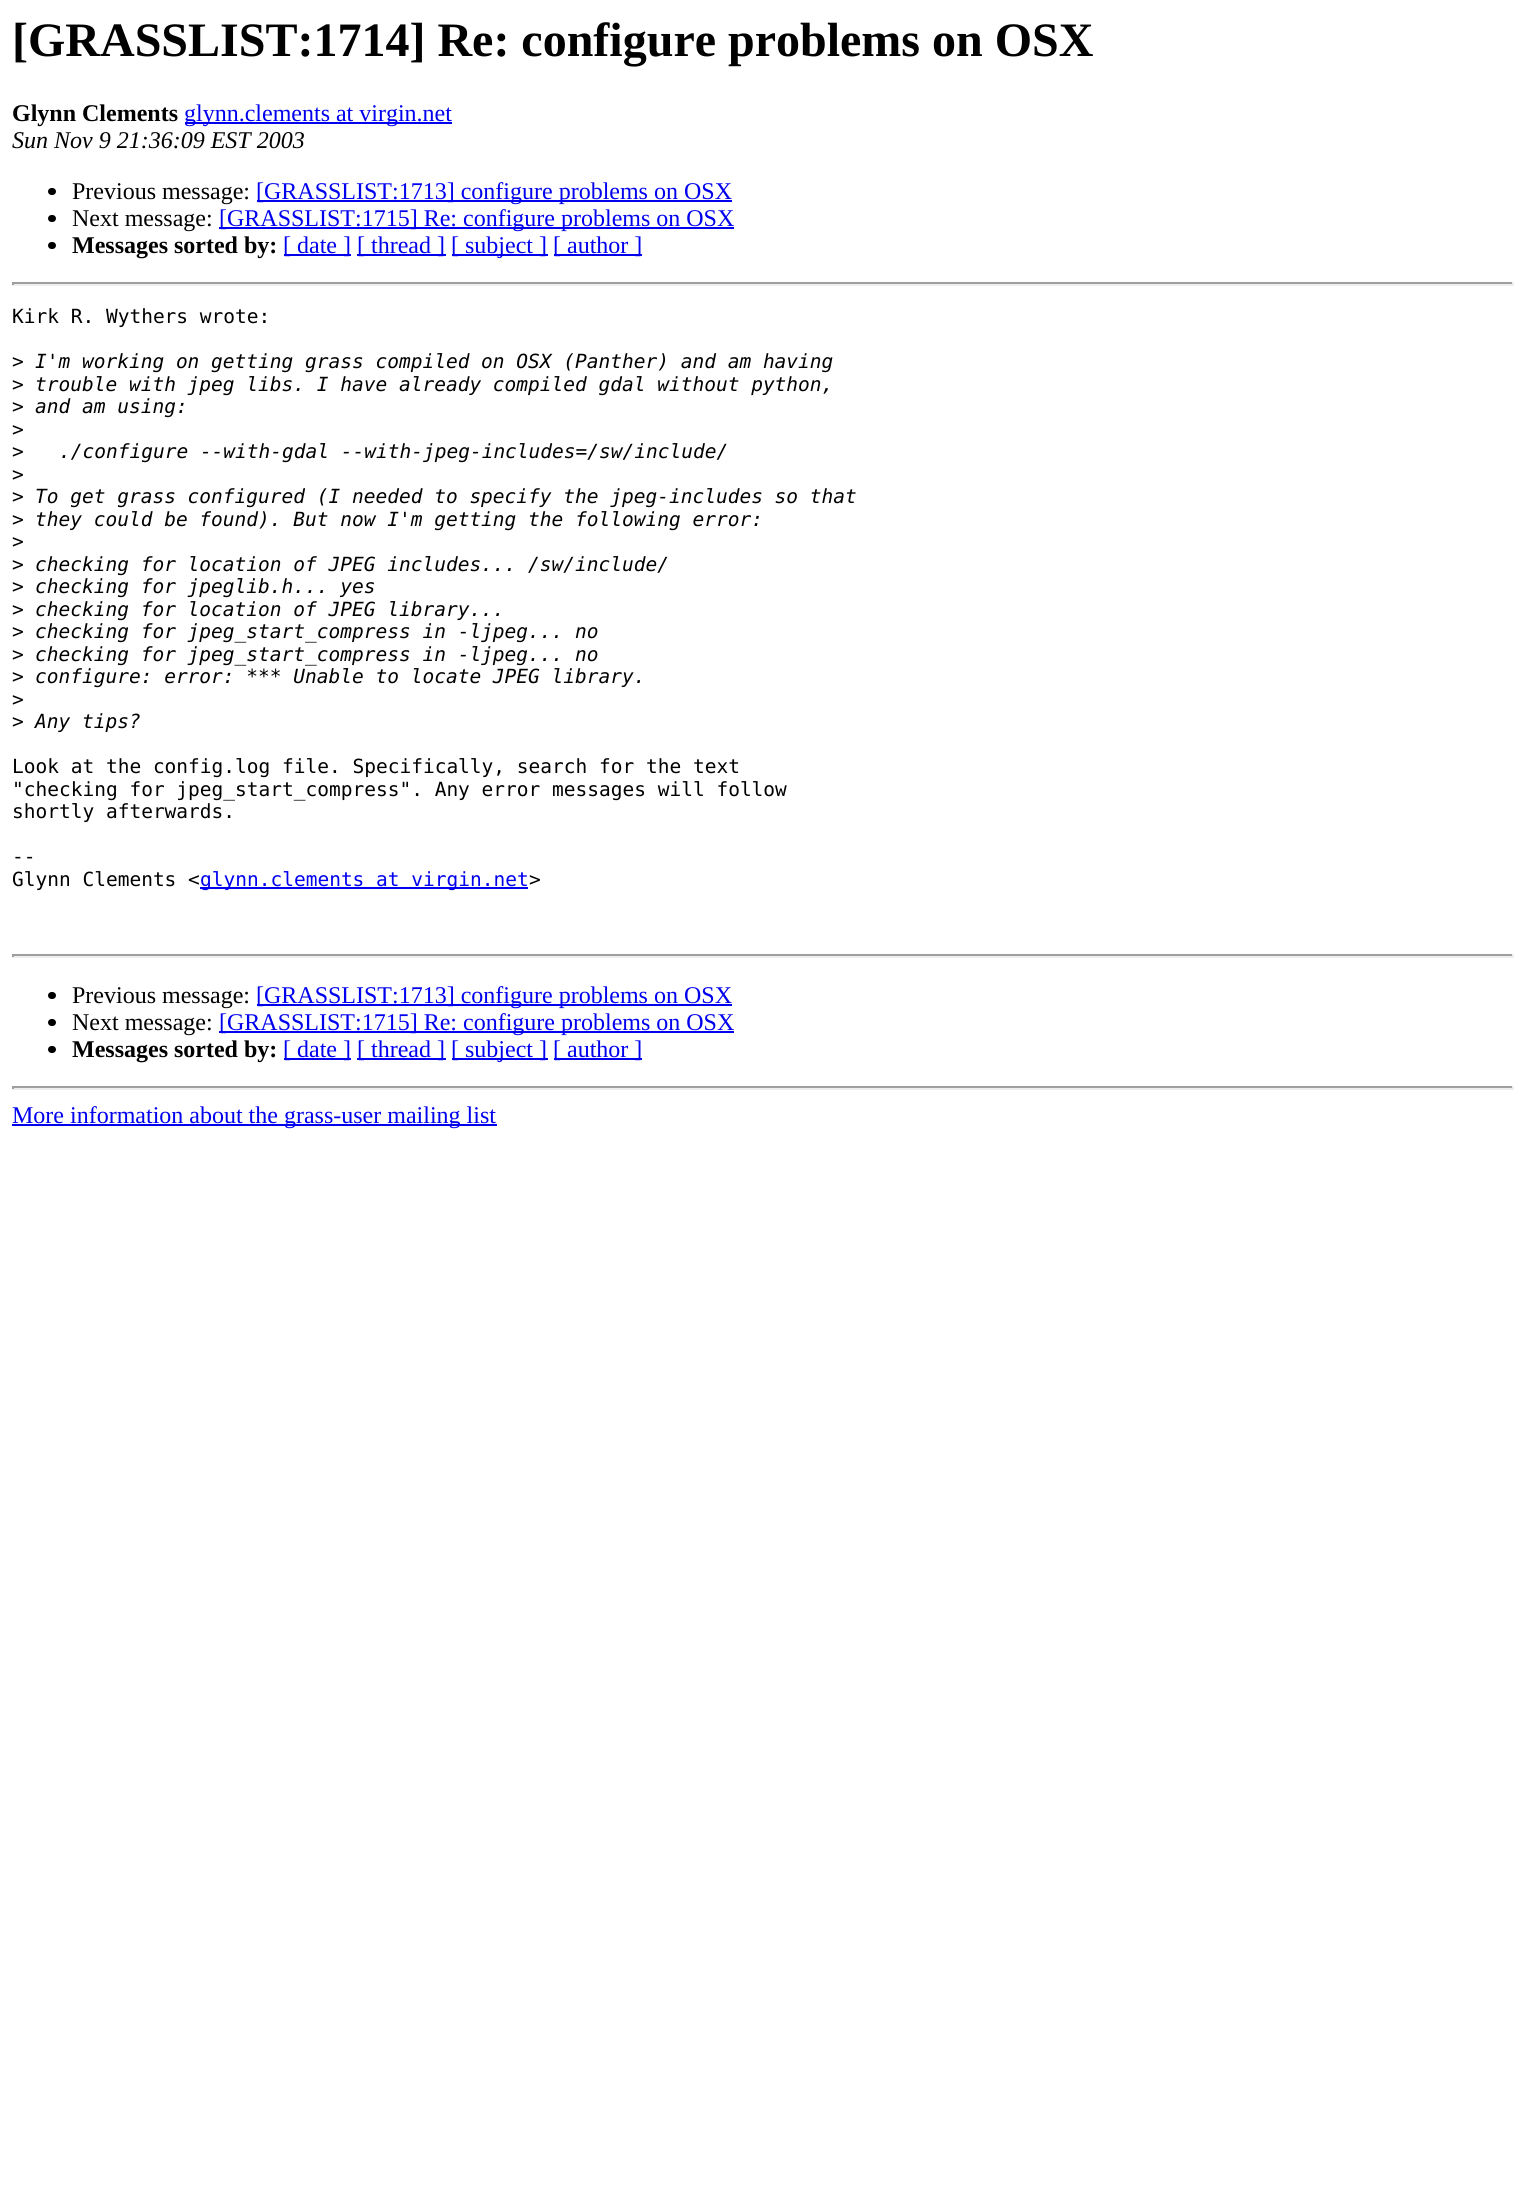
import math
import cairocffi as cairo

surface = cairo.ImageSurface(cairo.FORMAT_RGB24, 1525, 2188)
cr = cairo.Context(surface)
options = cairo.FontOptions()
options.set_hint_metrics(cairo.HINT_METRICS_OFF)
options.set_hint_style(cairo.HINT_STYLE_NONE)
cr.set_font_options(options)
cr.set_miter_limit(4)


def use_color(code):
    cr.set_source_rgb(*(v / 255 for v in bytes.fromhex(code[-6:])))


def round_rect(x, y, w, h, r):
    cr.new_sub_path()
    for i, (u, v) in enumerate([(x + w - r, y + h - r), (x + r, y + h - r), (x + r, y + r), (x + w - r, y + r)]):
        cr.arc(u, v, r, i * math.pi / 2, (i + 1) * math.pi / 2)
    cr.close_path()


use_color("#ffffff")
cr.paint()
cr.select_font_face("Liberation Serif", cairo.FONT_SLANT_NORMAL, cairo.FONT_WEIGHT_BOLD)
cr.set_font_size(48)
use_color("#000000")
cr.move_to(12, 56)
cr.show_text("[GRASSLIST:1714] Re: configure problems on OSX")
cr.set_font_size(24)
cr.move_to(12, 121)
cr.show_text("Glynn Clements")
use_color("#0000ee")
cr.rectangle(185, 122, 267, 2)
cr.fill()
cr.select_font_face("Liberation Serif")
cr.move_to(184, 121)
cr.show_text("glynn.clements at virgin.net")
cr.select_font_face("Liberation Serif", cairo.FONT_SLANT_ITALIC)
use_color("#000000")
cr.move_to(12, 148)
cr.show_text("Sun Nov 9 21:36:09 EST 2003")
round_rect(48, 188, 8, 7, 3.5)
cr.fill()
cr.select_font_face("Liberation Serif")
cr.move_to(72, 199)
cr.show_text("Previous message:")
use_color("#0000ee")
cr.rectangle(257, 200, 475, 2)
cr.fill()
cr.move_to(256, 199)
cr.show_text("[GRASSLIST:1713] configure problems on OSX")
use_color("#000000")
round_rect(48, 215, 8, 7, 3.5)
cr.fill()
cr.move_to(72, 226)
cr.show_text("Next message:")
use_color("#0000ee")
cr.rectangle(219, 227, 515, 2)
cr.fill()
cr.move_to(219, 226)
cr.show_text("[GRASSLIST:1715] Re: configure problems on OSX")
use_color("#000000")
round_rect(48, 242, 8, 7, 3.5)
cr.fill()
cr.select_font_face("Liberation Serif", cairo.FONT_SLANT_NORMAL, cairo.FONT_WEIGHT_BOLD)
cr.move_to(72, 253)
cr.show_text("Messages sorted by:")
use_color("#0000ee")
cr.rectangle(284, 254, 67, 2)
cr.fill()
cr.select_font_face("Liberation Serif")
cr.move_to(283, 253)
cr.show_text("[ date ]")
cr.rectangle(357, 254, 89, 2)
cr.fill()
cr.move_to(357, 253)
cr.show_text("[ thread ]")
cr.rectangle(452, 254, 96, 2)
cr.fill()
cr.move_to(451, 253)
cr.show_text("[ subject ]")
cr.rectangle(554, 254, 88, 2)
cr.fill()
cr.move_to(553, 253)
cr.show_text("[ author ]")
use_color("#9f9f9f")
cr.rectangle(12, 282, 1502, 2)
cr.fill()
use_color("#eeeeee")
cr.rectangle(1512, 282, 2, 3)
cr.fill()
cr.rectangle(12, 284, 1502, 2)
cr.fill()
use_color("#9f9f9f")
cr.rectangle(12, 282, 2, 3)
cr.fill()
cr.select_font_face("DejaVu Sans Mono")
cr.set_font_size(19.5)
use_color("#000000")
cr.move_to(12, 323)
cr.show_text("Kirk R. Wythers wrote:")
cr.move_to(12, 368)
cr.show_text(">")
cr.select_font_face("DejaVu Sans Mono", cairo.FONT_SLANT_ITALIC)
cr.move_to(35, 368)
cr.show_text("I'm working on getting grass compiled on OSX (Panther) and am having")
cr.select_font_face("DejaVu Sans Mono")
cr.move_to(12, 391)
cr.show_text(">")
cr.select_font_face("DejaVu Sans Mono", cairo.FONT_SLANT_ITALIC)
cr.move_to(35, 391)
cr.show_text("trouble with jpeg libs. I have already compiled gdal without python,")
cr.select_font_face("DejaVu Sans Mono")
cr.move_to(12, 413)
cr.show_text(">")
cr.select_font_face("DejaVu Sans Mono", cairo.FONT_SLANT_ITALIC)
cr.move_to(35, 413)
cr.show_text("and am using:")
cr.select_font_face("DejaVu Sans Mono")
cr.move_to(12, 436)
cr.show_text(">")
cr.move_to(12, 458)
cr.show_text(">")
cr.select_font_face("DejaVu Sans Mono", cairo.FONT_SLANT_ITALIC)
cr.move_to(59, 458)
cr.show_text("./configure --with-gdal --with-jpeg-includes=/sw/include/")
cr.select_font_face("DejaVu Sans Mono")
cr.move_to(12, 481)
cr.show_text(">")
cr.move_to(12, 503)
cr.show_text(">")
cr.select_font_face("DejaVu Sans Mono", cairo.FONT_SLANT_ITALIC)
cr.move_to(35, 503)
cr.show_text("To get grass configured (I needed to specify the jpeg-includes so that")
cr.select_font_face("DejaVu Sans Mono")
cr.move_to(12, 526)
cr.show_text(">")
cr.select_font_face("DejaVu Sans Mono", cairo.FONT_SLANT_ITALIC)
cr.move_to(35, 526)
cr.show_text("they could be found). But now I'm getting the following error:")
cr.select_font_face("DejaVu Sans Mono")
cr.move_to(12, 548)
cr.show_text(">")
cr.move_to(12, 571)
cr.show_text(">")
cr.select_font_face("DejaVu Sans Mono", cairo.FONT_SLANT_ITALIC)
cr.move_to(35, 571)
cr.show_text("checking for location of JPEG includes... /sw/include/")
cr.select_font_face("DejaVu Sans Mono")
cr.move_to(12, 593)
cr.show_text(">")
cr.select_font_face("DejaVu Sans Mono", cairo.FONT_SLANT_ITALIC)
cr.move_to(35, 593)
cr.show_text("checking for jpeglib.h... yes")
cr.select_font_face("DejaVu Sans Mono")
cr.move_to(12, 616)
cr.show_text(">")
cr.select_font_face("DejaVu Sans Mono", cairo.FONT_SLANT_ITALIC)
cr.move_to(35, 616)
cr.show_text("checking for location of JPEG library...")
cr.select_font_face("DejaVu Sans Mono")
cr.move_to(12, 638)
cr.show_text(">")
cr.select_font_face("DejaVu Sans Mono", cairo.FONT_SLANT_ITALIC)
cr.move_to(35, 638)
cr.show_text("checking for jpeg_start_compress in -ljpeg... no")
cr.select_font_face("DejaVu Sans Mono")
cr.move_to(12, 661)
cr.show_text(">")
cr.select_font_face("DejaVu Sans Mono", cairo.FONT_SLANT_ITALIC)
cr.move_to(35, 661)
cr.show_text("checking for jpeg_start_compress in -ljpeg... no")
cr.select_font_face("DejaVu Sans Mono")
cr.move_to(12, 683)
cr.show_text(">")
cr.select_font_face("DejaVu Sans Mono", cairo.FONT_SLANT_ITALIC)
cr.move_to(35, 683)
cr.show_text("configure: error: *** Unable to locate JPEG library.")
cr.select_font_face("DejaVu Sans Mono")
cr.move_to(12, 706)
cr.show_text(">")
cr.move_to(12, 728)
cr.show_text(">")
cr.select_font_face("DejaVu Sans Mono", cairo.FONT_SLANT_ITALIC)
cr.move_to(35, 728)
cr.show_text("Any tips?")
cr.select_font_face("DejaVu Sans Mono")
cr.move_to(12, 773)
cr.show_text("Look at the config.log file. Specifically, search for the text")
cr.move_to(12, 796)
cr.show_text("\"checking for jpeg_start_compress\". Any error messages will follow")
cr.move_to(12, 818)
cr.show_text("shortly afterwards.")
cr.move_to(12, 863)
cr.show_text("--")
cr.move_to(12, 886)
cr.show_text("Glynn Clements <")
use_color("#0000ee")
cr.rectangle(200, 887, 328, 2)
cr.fill()
cr.move_to(200, 886)
cr.show_text("glynn.clements at virgin.net")
use_color("#000000")
cr.move_to(529, 886)
cr.show_text(">")
use_color("#9f9f9f")
cr.rectangle(12, 954, 1502, 2)
cr.fill()
use_color("#eeeeee")
cr.rectangle(1512, 954, 2, 3)
cr.fill()
cr.rectangle(12, 956, 1502, 2)
cr.fill()
use_color("#9f9f9f")
cr.rectangle(12, 954, 2, 3)
cr.fill()
use_color("#000000")
round_rect(48, 992, 8, 7, 3.5)
cr.fill()
cr.select_font_face("Liberation Serif")
cr.set_font_size(24)
cr.move_to(72, 1003)
cr.show_text("Previous message:")
use_color("#0000ee")
cr.rectangle(257, 1004, 475, 2)
cr.fill()
cr.move_to(256, 1003)
cr.show_text("[GRASSLIST:1713] configure problems on OSX")
use_color("#000000")
round_rect(48, 1019, 8, 7, 3.5)
cr.fill()
cr.move_to(72, 1030)
cr.show_text("Next message:")
use_color("#0000ee")
cr.rectangle(219, 1031, 515, 2)
cr.fill()
cr.move_to(219, 1030)
cr.show_text("[GRASSLIST:1715] Re: configure problems on OSX")
use_color("#000000")
round_rect(48, 1046, 8, 7, 3.5)
cr.fill()
cr.select_font_face("Liberation Serif", cairo.FONT_SLANT_NORMAL, cairo.FONT_WEIGHT_BOLD)
cr.move_to(72, 1057)
cr.show_text("Messages sorted by:")
use_color("#0000ee")
cr.rectangle(284, 1058, 67, 2)
cr.fill()
cr.select_font_face("Liberation Serif")
cr.move_to(283, 1057)
cr.show_text("[ date ]")
cr.rectangle(357, 1058, 89, 2)
cr.fill()
cr.move_to(357, 1057)
cr.show_text("[ thread ]")
cr.rectangle(452, 1058, 96, 2)
cr.fill()
cr.move_to(451, 1057)
cr.show_text("[ subject ]")
cr.rectangle(554, 1058, 88, 2)
cr.fill()
cr.move_to(553, 1057)
cr.show_text("[ author ]")
use_color("#9f9f9f")
cr.rectangle(12, 1086, 1502, 2)
cr.fill()
use_color("#eeeeee")
cr.rectangle(1512, 1086, 2, 3)
cr.fill()
cr.rectangle(12, 1088, 1502, 2)
cr.fill()
use_color("#9f9f9f")
cr.rectangle(12, 1086, 2, 3)
cr.fill()
use_color("#0000ee")
cr.rectangle(12, 1124, 485, 2)
cr.fill()
cr.move_to(12, 1123)
cr.show_text("More information about the grass-user mailing list")
surface.write_to_png("result.png")
